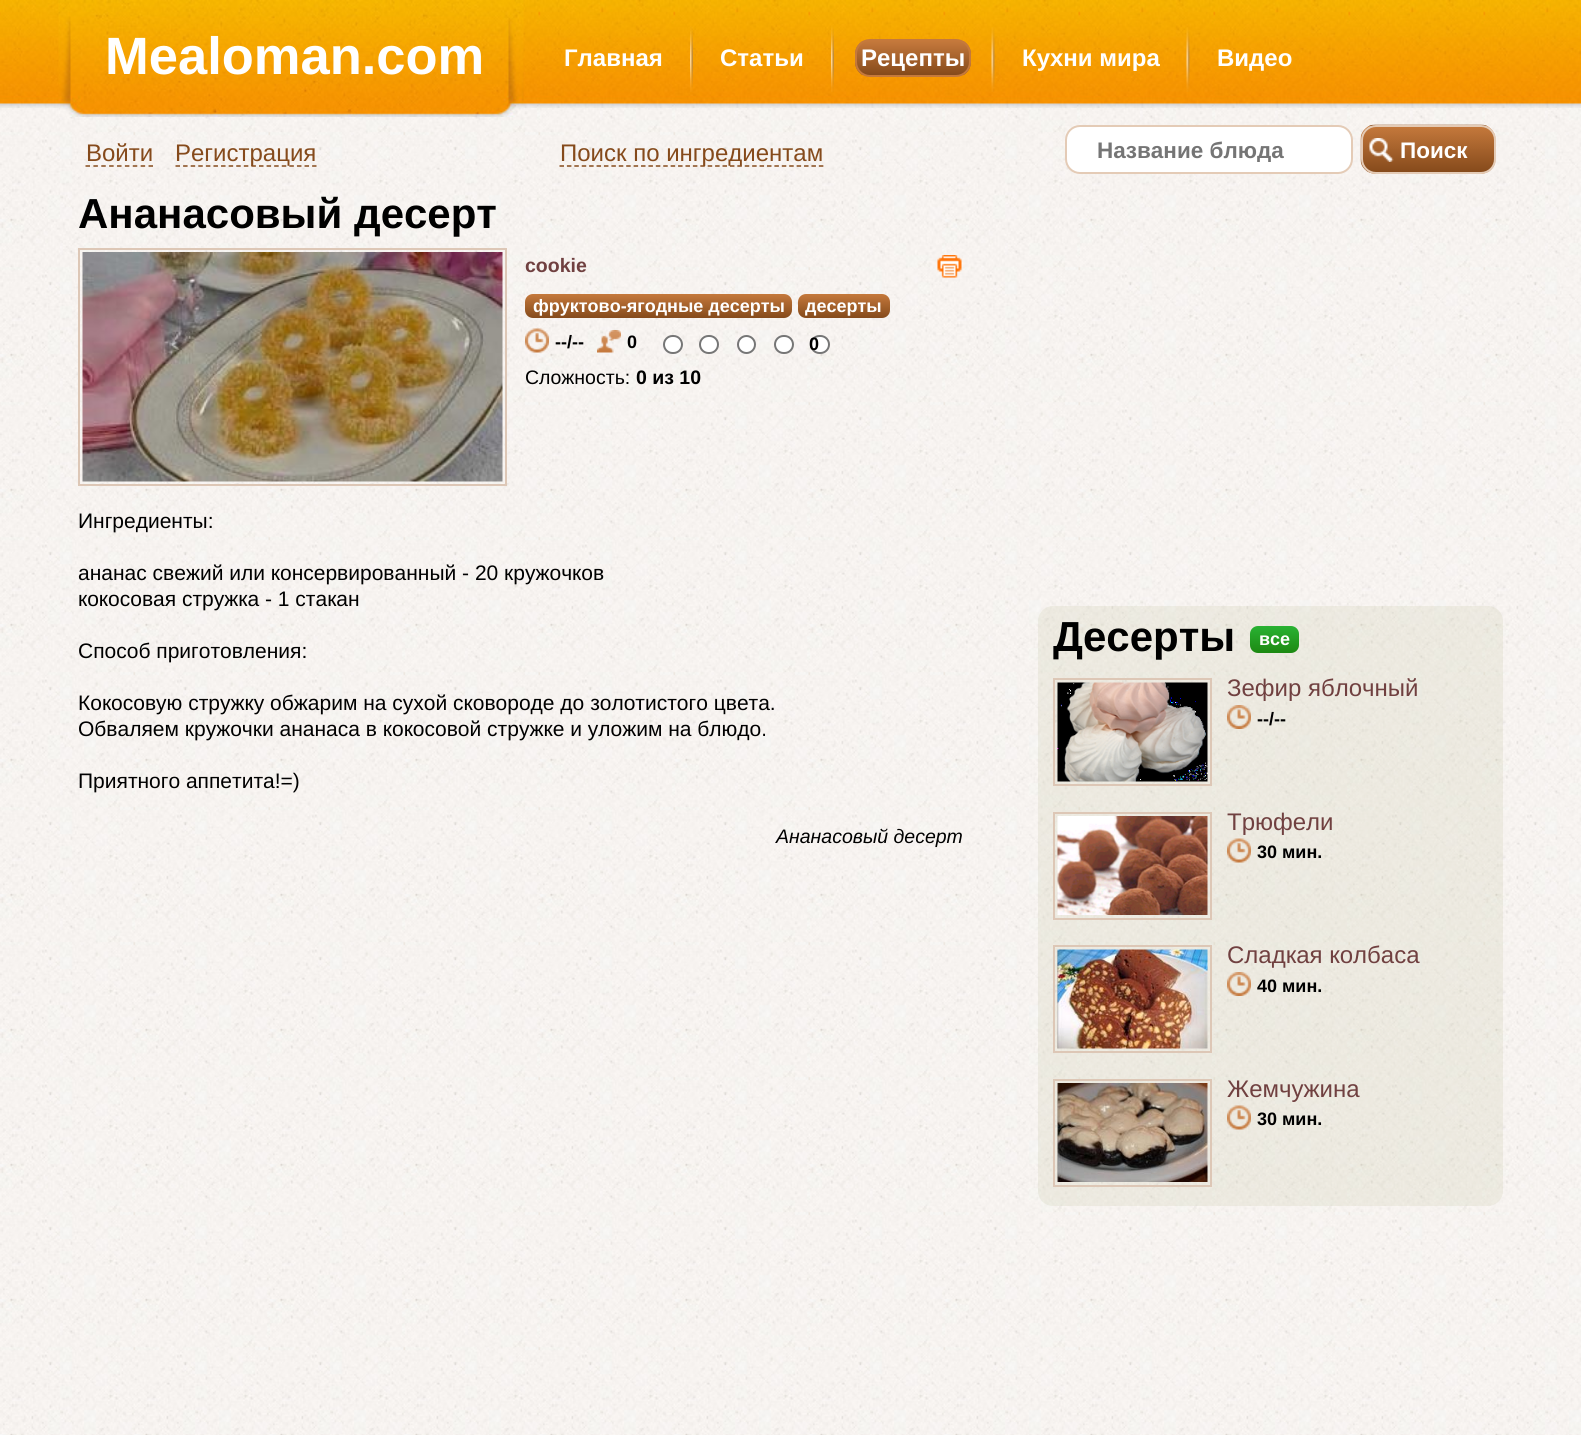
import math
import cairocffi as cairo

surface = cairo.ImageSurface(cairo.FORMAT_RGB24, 1581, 1435)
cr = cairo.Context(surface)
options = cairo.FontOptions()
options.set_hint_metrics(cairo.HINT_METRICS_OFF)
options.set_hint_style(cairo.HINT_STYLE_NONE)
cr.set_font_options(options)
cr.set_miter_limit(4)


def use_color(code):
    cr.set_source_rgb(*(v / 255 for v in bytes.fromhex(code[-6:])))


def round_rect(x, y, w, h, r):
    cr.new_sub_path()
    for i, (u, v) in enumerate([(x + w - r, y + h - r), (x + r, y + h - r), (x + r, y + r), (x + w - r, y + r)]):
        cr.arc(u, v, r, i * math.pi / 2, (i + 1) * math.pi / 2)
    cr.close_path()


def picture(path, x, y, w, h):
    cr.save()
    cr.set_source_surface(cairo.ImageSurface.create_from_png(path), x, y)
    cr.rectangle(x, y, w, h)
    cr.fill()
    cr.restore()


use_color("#ffffff")
cr.paint()
picture("img1.png", 0, 108, 1581, 1327)
picture("img2.png", 0, 0, 1581, 108)
picture("img3.png", 58, 0, 466, 117)
cr.select_font_face("Liberation Sans", cairo.FONT_SLANT_NORMAL, cairo.FONT_WEIGHT_BOLD)
cr.set_font_size(52.5)
use_color("#ffffff")
cr.move_to(105, 74)
cr.show_text("Mealoman.com")
cr.set_font_size(24)
cr.move_to(564, 66)
cr.show_text("Главная")
picture("img4.png", 690, 26, 3, 66)
cr.move_to(720, 66)
cr.show_text("Статьи")
picture("img5.png", 831, 25, 3, 67)
cr.save()
round_rect(855, 39, 116, 38, 15)
cr.clip()
gradient = cairo.LinearGradient(857, 41, 857, 75)
gradient.add_color_stop_rgba(0, 0.773, 0.475, 0.235, 1)
gradient.add_color_stop_rgba(1, 0.522, 0.29, 0.106, 1)
cr.set_source(gradient)
cr.rectangle(855, 41, 116, 34)
cr.fill()
cr.restore()
round_rect(856, 40, 114, 36, 14)
use_color("#c5793c")
cr.stroke()
use_color("#ffffff")
cr.move_to(861, 66)
cr.show_text("Рецепты")
picture("img6.png", 991, 27, 4, 65)
cr.move_to(1022, 66)
cr.show_text("Кухни мира")
picture("img7.png", 1186, 27, 4, 65)
cr.move_to(1217, 66)
cr.show_text("Видео")
cr.select_font_face("Liberation Sans")
use_color("#854a1b")
cr.move_to(86, 161)
cr.show_text("Войти")
cr.new_path()
cr.move_to(85.5, 166)
cr.line_to(153, 166)
cr.set_line_width(1.5)
cr.set_dash([4.5, 3.38])
cr.stroke()
cr.new_path()
cr.move_to(175.5, 166)
cr.line_to(316.5, 166)
cr.set_dash([4.5, 3.09])
cr.stroke()
cr.move_to(175, 161)
cr.show_text("Регистрация")
cr.new_path()
cr.move_to(559.5, 166)
cr.line_to(823.5, 166)
cr.set_dash([4.5, 2.91])
cr.stroke()
cr.move_to(560, 161)
cr.show_text("Поиск по ингредиентам")
use_color("#ffffff")
round_rect(1066, 126, 286, 47, 14)
cr.fill_preserve()
use_color("#e4cbb6")
cr.set_line_width(2)
cr.set_dash([])
cr.stroke()
cr.save()
cr.rectangle(1097, 137, 225, 25)
cr.clip()
cr.select_font_face("Liberation Sans", cairo.FONT_SLANT_NORMAL, cairo.FONT_WEIGHT_BOLD)
cr.set_font_size(22.5)
use_color("#757575")
cr.move_to(1097, 158)
cr.show_text("Название блюда")
cr.restore()
picture("img8.png", 1360, 124, 136, 50)
round_rect(1362, 126, 133, 47, 14)
cr.stroke()
cr.select_font_face("Liberation Sans", cairo.FONT_SLANT_NORMAL, cairo.FONT_WEIGHT_BOLD)
cr.set_font_size(22.5)
use_color("#ffffff")
cr.move_to(1400, 158)
cr.show_text("Поиск")
cr.set_font_size(42)
use_color("#000000")
cr.move_to(78, 228)
cr.show_text("Ананасовый десерт")
cr.rectangle(79, 249, 427, 236)
use_color("#ddc7b6")
cr.stroke()
picture("img9.png", 82, 252, 421, 230)
cr.set_font_size(19.5)
use_color("#704040")
cr.move_to(525, 272)
cr.show_text("cookie")
picture("img10.png", 937, 255, 26, 23)
gradient = cairo.LinearGradient(525, 294, 525, 318)
gradient.add_color_stop_rgba(0, 0.773, 0.475, 0.235, 1)
gradient.add_color_stop_rgba(1, 0.522, 0.29, 0.106, 1)
cr.set_source(gradient)
round_rect(525, 294, 267, 24, 8)
cr.fill()
cr.set_font_size(18)
use_color("#ffffff")
cr.move_to(533, 312)
cr.show_text("фруктово-ягодные десерты")
gradient = cairo.LinearGradient(798, 294, 798, 318)
gradient.add_color_stop_rgba(0, 0.773, 0.475, 0.235, 1)
gradient.add_color_stop_rgba(1, 0.522, 0.29, 0.106, 1)
cr.set_source(gradient)
round_rect(798, 294, 92, 24, 8)
cr.fill()
use_color("#ffffff")
cr.move_to(805, 312)
cr.show_text("десерты")
picture("img11.png", 525, 328, 24, 25)
use_color("#000000")
cr.move_to(555, 348)
cr.show_text("--/--")
picture("img12.png", 597, 330, 24, 23)
cr.move_to(627, 348)
cr.show_text("0")
use_color("#ffffff")
round_rect(664, 336, 18, 17, 8.5)
cr.fill_preserve()
use_color("#767676")
cr.stroke()
use_color("#ffffff")
round_rect(700, 336, 18, 17, 8.5)
cr.fill_preserve()
use_color("#767676")
cr.stroke()
use_color("#ffffff")
cr.arc(746.5, 344.5, 8.5, 0, 2 * math.pi)
cr.fill_preserve()
use_color("#767676")
cr.stroke()
use_color("#ffffff")
round_rect(775, 336, 18, 17, 8.5)
cr.fill_preserve()
use_color("#767676")
cr.stroke()
use_color("#ffffff")
round_rect(811, 336, 18, 17, 8.5)
cr.fill_preserve()
use_color("#767676")
cr.stroke()
use_color("#000000")
cr.move_to(809, 350)
cr.show_text("0")
cr.select_font_face("Liberation Sans")
cr.set_font_size(19.5)
cr.move_to(525, 384)
cr.show_text("Сложность:")
cr.select_font_face("Liberation Sans", cairo.FONT_SLANT_NORMAL, cairo.FONT_WEIGHT_BOLD)
cr.move_to(636, 384)
cr.show_text("0 из 10")
cr.select_font_face("Liberation Sans")
cr.set_font_size(21)
cr.move_to(78, 528)
cr.show_text("Ингредиенты:")
cr.move_to(78, 580)
cr.show_text("ананас свежий или консервированный - 20 кружочков")
cr.move_to(78, 606)
cr.show_text("кокосовая стружка - 1 стакан")
cr.move_to(78, 658)
cr.show_text("Способ приготовления:")
cr.move_to(78, 710)
cr.show_text("Кокосовую стружку обжарим на сухой сковороде до золотистого цвета.")
cr.move_to(78, 736)
cr.show_text("Обваляем кружочки ананаса в кокосовой стружке и уложим на блюдо.")
cr.move_to(78, 788)
cr.show_text("Приятного аппетита!=)")
cr.select_font_face("Liberation Sans", cairo.FONT_SLANT_ITALIC)
cr.set_font_size(19.5)
cr.move_to(776, 843)
cr.show_text("Ананасовый десерт")
cr.set_source_rgba(0.769, 0.769, 0.627, 0.2)
round_rect(1038, 606, 465, 600, 15)
cr.fill()
cr.select_font_face("Liberation Sans", cairo.FONT_SLANT_NORMAL, cairo.FONT_WEIGHT_BOLD)
cr.set_font_size(42)
use_color("#000000")
cr.move_to(1053, 651)
cr.show_text("Десерты")
gradient = cairo.LinearGradient(1250, 626, 1250, 653)
gradient.add_color_stop_rgba(0, 0.161, 0.698, 0.2, 1)
gradient.add_color_stop_rgba(1, 0.114, 0.537, 0.071, 1)
cr.set_source(gradient)
round_rect(1250, 626, 49, 27, 8)
cr.fill()
cr.set_font_size(18)
use_color("#ffffff")
cr.move_to(1259, 645)
cr.show_text("все")
cr.rectangle(1054, 679, 157, 106)
use_color("#ddc7b6")
cr.stroke()
picture("img13.png", 1057, 682, 151, 100)
cr.select_font_face("Liberation Sans")
cr.set_font_size(24)
use_color("#704040")
cr.move_to(1227, 696)
cr.show_text("Зефир яблочный")
picture("img14.png", 1227, 705, 24, 24)
cr.select_font_face("Liberation Sans", cairo.FONT_SLANT_NORMAL, cairo.FONT_WEIGHT_BOLD)
cr.set_font_size(18)
use_color("#000000")
cr.move_to(1257, 725)
cr.show_text("--/--")
cr.rectangle(1054, 813, 157, 106)
use_color("#ddc7b6")
cr.stroke()
picture("img15.png", 1057, 816, 151, 99)
cr.select_font_face("Liberation Sans")
cr.set_font_size(24)
use_color("#704040")
cr.move_to(1227, 830)
cr.show_text("Трюфели")
picture("img16.png", 1227, 838, 24, 25)
cr.select_font_face("Liberation Sans", cairo.FONT_SLANT_NORMAL, cairo.FONT_WEIGHT_BOLD)
cr.set_font_size(18)
use_color("#000000")
cr.move_to(1257, 858)
cr.show_text("30 мин.")
cr.rectangle(1054, 946, 157, 106)
use_color("#ddc7b6")
cr.stroke()
picture("img17.png", 1057, 949, 151, 100)
cr.select_font_face("Liberation Sans")
cr.set_font_size(24)
use_color("#704040")
cr.move_to(1227, 963)
cr.show_text("Сладкая колбаса")
picture("img18.png", 1227, 972, 24, 24)
cr.select_font_face("Liberation Sans", cairo.FONT_SLANT_NORMAL, cairo.FONT_WEIGHT_BOLD)
cr.set_font_size(18)
use_color("#000000")
cr.move_to(1257, 992)
cr.show_text("40 мин.")
cr.rectangle(1054, 1080, 157, 106)
use_color("#ddc7b6")
cr.stroke()
picture("img19.png", 1057, 1083, 151, 99)
cr.select_font_face("Liberation Sans")
cr.set_font_size(24)
use_color("#704040")
cr.move_to(1227, 1097)
cr.show_text("Жемчужина")
picture("img20.png", 1227, 1105, 24, 25)
cr.select_font_face("Liberation Sans", cairo.FONT_SLANT_NORMAL, cairo.FONT_WEIGHT_BOLD)
cr.set_font_size(18)
use_color("#000000")
cr.move_to(1257, 1125)
cr.show_text("30 мин.")
surface.write_to_png("result.png")
